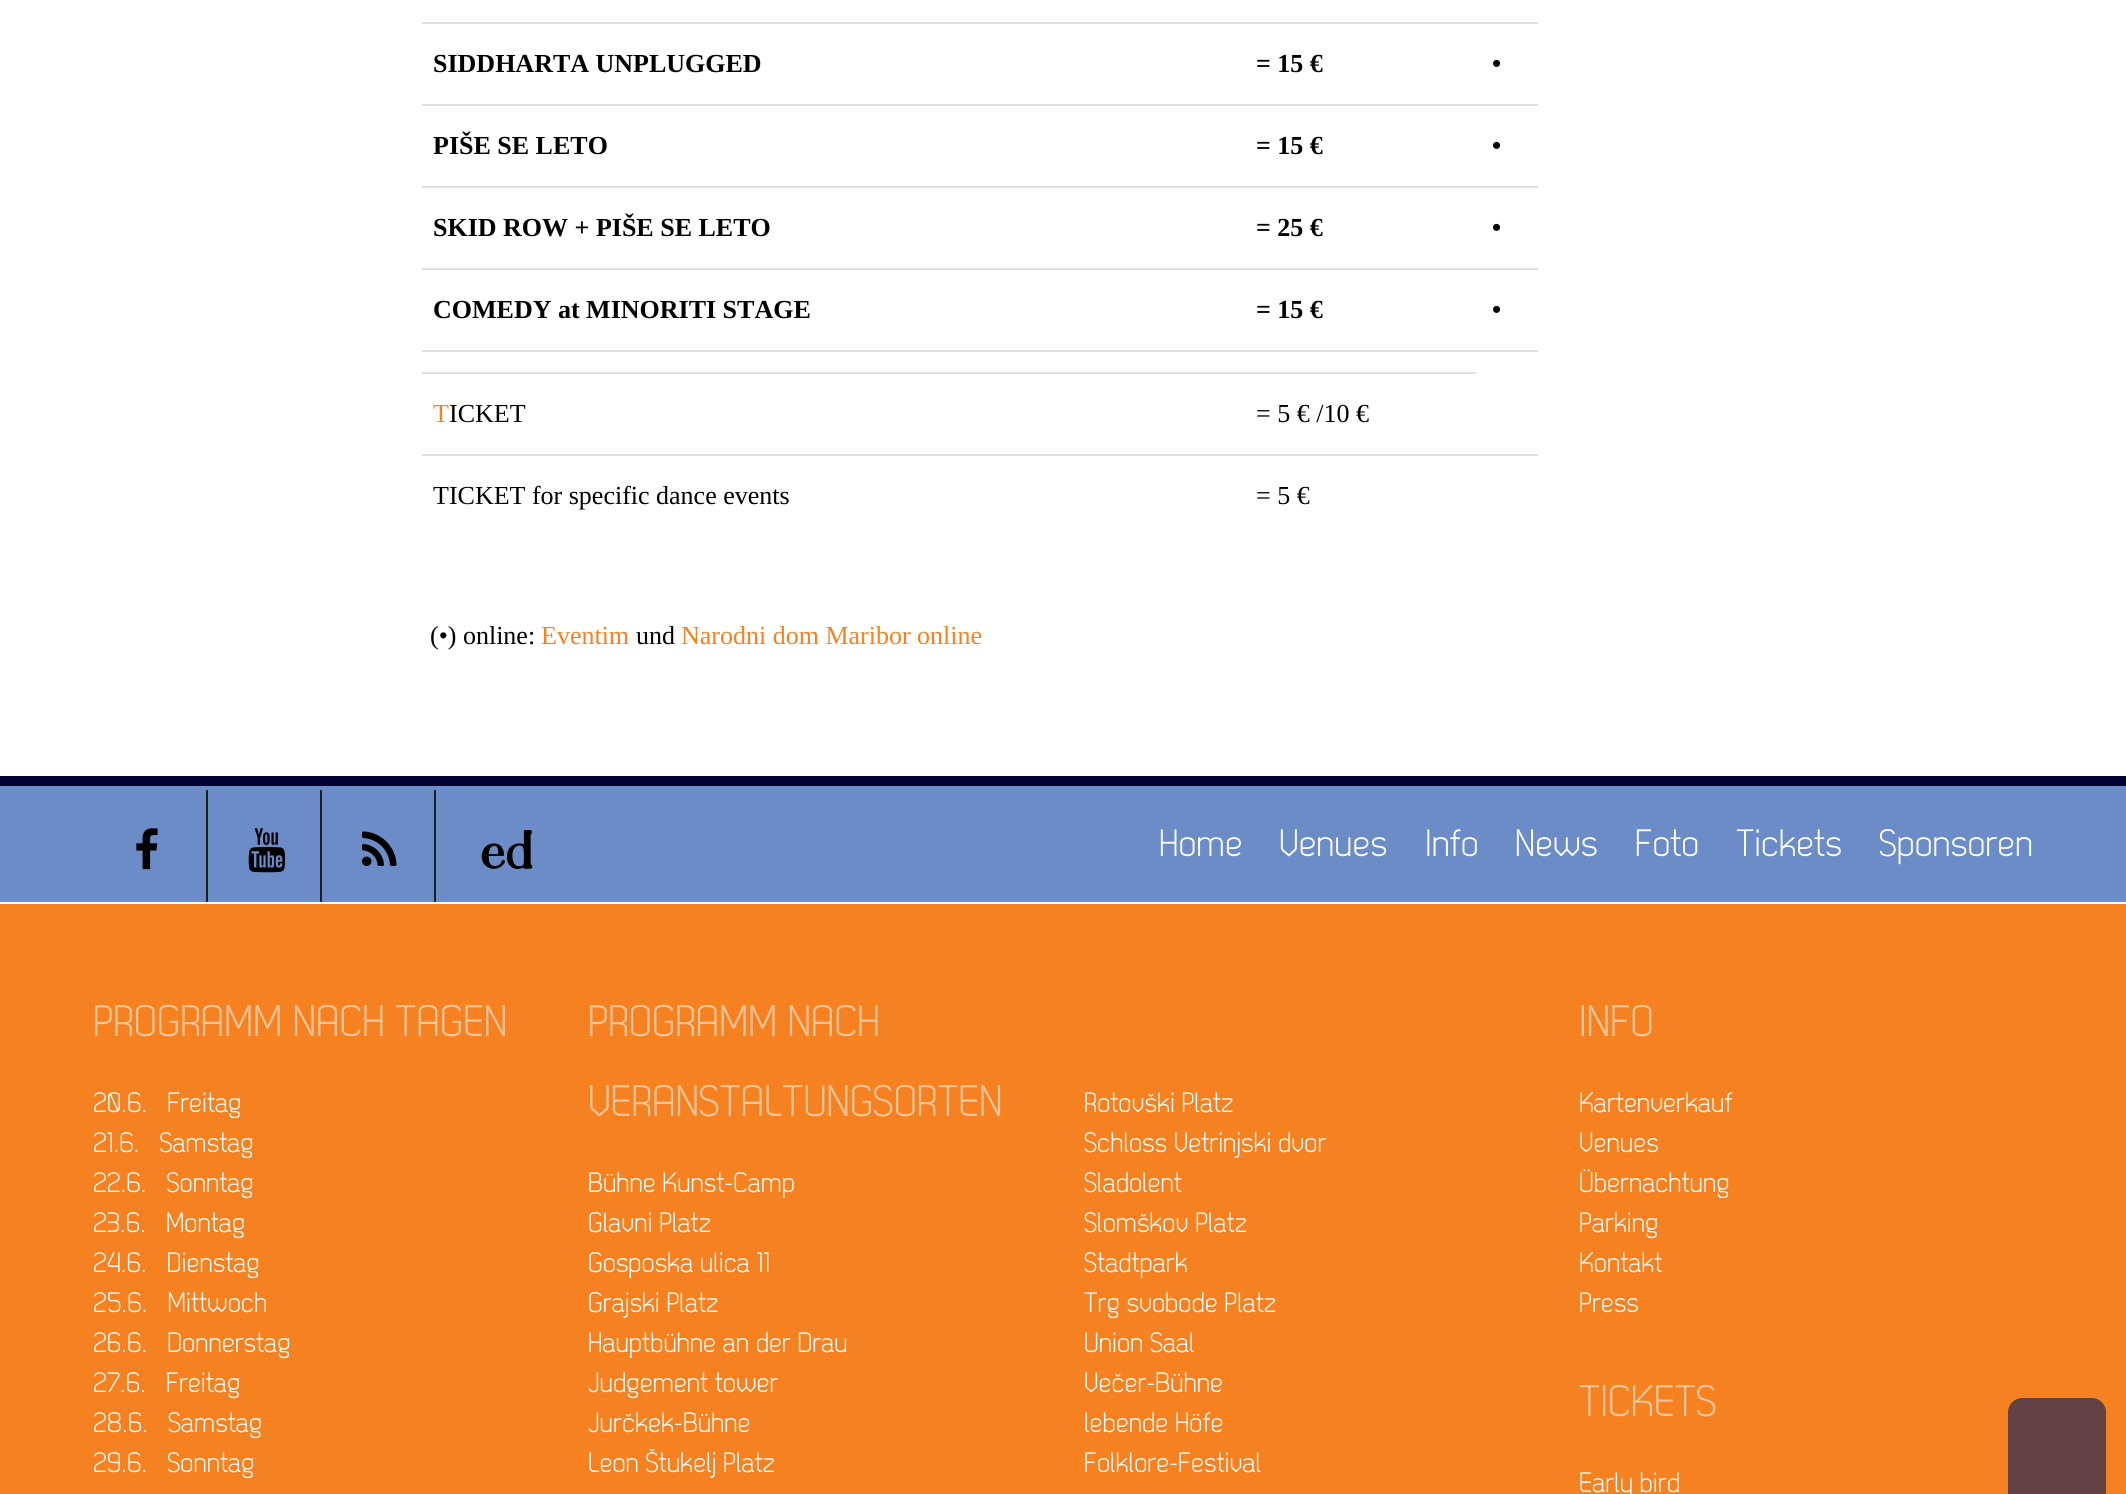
import math
import cairocffi as cairo

surface = cairo.ImageSurface(cairo.FORMAT_RGB24, 2126, 1494)
cr = cairo.Context(surface)
options = cairo.FontOptions()
options.set_hint_metrics(cairo.HINT_METRICS_OFF)
options.set_hint_style(cairo.HINT_STYLE_NONE)
cr.set_font_options(options)
cr.set_miter_limit(4)


def use_color(code):
    cr.set_source_rgb(*(v / 255 for v in bytes.fromhex(code[-6:])))


def picture(path, x, y, w, h):
    cr.save()
    cr.set_source_surface(cairo.ImageSurface.create_from_png(path), x, y)
    cr.rectangle(x, y, w, h)
    cr.fill()
    cr.restore()


use_color("#ffffff")
cr.paint()
cr.select_font_face("Liberation Serif", cairo.FONT_SLANT_NORMAL, cairo.FONT_WEIGHT_BOLD)
cr.set_font_size(26)
use_color("#000000")
cr.move_to(433, 72)
cr.show_text("SIDDHARTA UNPLUGGED")
cr.move_to(1256, 72)
cr.show_text("= 15 €")
use_color("#e0e0e0")
cr.rectangle(422, 22, 1116, 2)
cr.fill()
use_color("#000000")
cr.move_to(1492, 72)
cr.show_text("•")
cr.move_to(433, 154)
cr.show_text("PIŠE SE LETO")
cr.move_to(1256, 154)
cr.show_text("= 15 €")
use_color("#e0e0e0")
cr.rectangle(422, 104, 1116, 2)
cr.fill()
use_color("#000000")
cr.move_to(1492, 154)
cr.show_text("•")
cr.move_to(433, 236)
cr.show_text("SKID ROW + PIŠE SE LETO")
cr.move_to(1256, 236)
cr.show_text("= 25 €")
use_color("#e0e0e0")
cr.rectangle(422, 186, 1116, 2)
cr.fill()
use_color("#000000")
cr.move_to(1492, 236)
cr.show_text("•")
cr.move_to(433, 318)
cr.show_text("COMEDY at MINORITI STAGE")
cr.move_to(1256, 318)
cr.show_text("= 15 €")
use_color("#e0e0e0")
cr.rectangle(422, 268, 1116, 2)
cr.fill()
use_color("#000000")
cr.move_to(1492, 318)
cr.show_text("•")
use_color("#e0e0e0")
cr.rectangle(422, 350, 1116, 2)
cr.fill()
cr.select_font_face("Liberation Serif")
use_color("#f68121")
cr.move_to(433, 422)
cr.show_text("T")
use_color("#000000")
cr.move_to(449, 422)
cr.show_text("ICKET")
use_color("#e0e0e0")
cr.rectangle(422, 372, 1054, 2)
cr.fill()
use_color("#000000")
cr.move_to(1256, 422)
cr.show_text("= 5 € /10 €")
use_color("#e0e0e0")
cr.rectangle(422, 454, 1116, 2)
cr.fill()
use_color("#000000")
cr.move_to(433, 504)
cr.show_text("TICKET for specific dance events")
cr.move_to(1256, 504)
cr.show_text("= 5 €")
cr.move_to(430, 644)
cr.show_text("(•) online:")
use_color("#f68121")
cr.move_to(541, 644)
cr.show_text("Eventim")
use_color("#000000")
cr.move_to(636, 644)
cr.show_text("und")
use_color("#f68121")
cr.move_to(681, 644)
cr.show_text("Narodni dom Maribor online")
use_color("#6c8cc7")
cr.rectangle(0, 786, 2126, 116)
cr.fill()
use_color("#000032")
cr.rectangle(0, 776, 2126, 10)
cr.fill()
picture("img1.png", 136, 828, 22, 42)
use_color("#1e1e1e")
cr.rectangle(206, 790, 2, 112)
cr.fill()
picture("img2.png", 248, 828, 38, 45)
cr.rectangle(320, 790, 2, 112)
cr.fill()
picture("img3.png", 362, 831, 35, 35)
cr.rectangle(434, 790, 2, 112)
cr.fill()
picture("img4.png", 481, 830, 52, 39)
cr.select_font_face("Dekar")
cr.set_font_size(38)
use_color("#ffffff")
cr.move_to(1159, 856)
cr.show_text("Home")
cr.move_to(1279, 856)
cr.show_text("Venues")
cr.move_to(1425, 856)
cr.show_text("Info")
cr.move_to(1515, 856)
cr.show_text("News")
cr.move_to(1635, 856)
cr.show_text("Foto")
cr.move_to(1736, 856)
cr.show_text("Tickets")
cr.move_to(1879, 856)
cr.show_text("Sponsoren")
use_color("#f68121")
cr.rectangle(0, 904, 2126, 590)
cr.fill()
cr.set_font_size(44)
use_color("#fcc79c")
cr.move_to(93, 1036)
cr.show_text("PROGRAMM NACH TAGEN")
cr.set_font_size(28)
use_color("#ffffff")
cr.move_to(93, 1112)
cr.show_text("20.6.   Freitag")
cr.move_to(93, 1152)
cr.show_text("21.6.   Samstag")
cr.move_to(93, 1192)
cr.show_text("22.6.   Sonntag")
cr.move_to(93, 1232)
cr.show_text("23.6.   Montag")
cr.move_to(93, 1272)
cr.show_text("24.6.   Dienstag")
cr.move_to(93, 1312)
cr.show_text("25.6.   Mittwoch")
cr.move_to(93, 1352)
cr.show_text("26.6.   Donnerstag")
cr.move_to(93, 1392)
cr.show_text("27.6.   Freitag")
cr.move_to(93, 1432)
cr.show_text("28.6.   Samstag")
cr.move_to(93, 1472)
cr.show_text("29.6.   Sonntag")
cr.set_font_size(44)
use_color("#fcc79c")
cr.move_to(588, 1036)
cr.show_text("PROGRAMM NACH")
cr.move_to(588, 1116)
cr.show_text("VERANSTALTUNGSORTEN")
cr.set_font_size(28)
use_color("#ffffff")
cr.move_to(588, 1192)
cr.show_text("Bühne Kunst-Camp")
cr.move_to(588, 1232)
cr.show_text("Glavni Platz")
cr.move_to(588, 1272)
cr.show_text("Gosposka ulica 11")
cr.move_to(588, 1312)
cr.show_text("Grajski Platz")
cr.move_to(588, 1352)
cr.show_text("Hauptbühne an der Drau")
cr.move_to(588, 1392)
cr.show_text("Judgement tower")
cr.move_to(588, 1432)
cr.show_text("Jurčkek-Bühne")
cr.move_to(588, 1472)
cr.show_text("Leon Štukelj Platz")
cr.move_to(1084, 1112)
cr.show_text("Rotovški Platz")
cr.move_to(1084, 1152)
cr.show_text("Schloss Vetrinjski dvor")
cr.move_to(1084, 1192)
cr.show_text("Sladolent")
cr.move_to(1084, 1232)
cr.show_text("Slomškov Platz")
cr.move_to(1084, 1272)
cr.show_text("Stadtpark")
cr.move_to(1084, 1312)
cr.show_text("Trg svobode Platz")
cr.move_to(1084, 1352)
cr.show_text("Union Saal")
cr.move_to(1084, 1392)
cr.show_text("Večer-Bühne")
cr.move_to(1084, 1432)
cr.show_text("lebende Höfe")
cr.move_to(1084, 1472)
cr.show_text("Folklore-Festival")
cr.set_font_size(44)
use_color("#fcc79c")
cr.move_to(1579, 1036)
cr.show_text("INFO")
cr.set_font_size(28)
use_color("#ffffff")
cr.move_to(1579, 1112)
cr.show_text("Kartenverkauf")
cr.move_to(1579, 1152)
cr.show_text("Venues")
cr.move_to(1579, 1192)
cr.show_text("Übernachtung")
cr.move_to(1579, 1232)
cr.show_text("Parking")
cr.move_to(1579, 1272)
cr.show_text("Kontakt")
cr.move_to(1579, 1312)
cr.show_text("Press")
cr.set_font_size(44)
use_color("#fcc79c")
cr.move_to(1579, 1416)
cr.show_text("TICKETS")
cr.set_font_size(28)
use_color("#ffffff")
cr.move_to(1579, 1492)
cr.show_text("Early bird")
use_color("#644145")
cr.new_path()
cr.move_to(2022, 1398)
cr.line_to(2092, 1398)
cr.curve_to(2099.5, 1398, 2106, 1404.5, 2106, 1412)
cr.line_to(2106, 1494)
cr.line_to(2008, 1494)
cr.line_to(2008, 1412)
cr.curve_to(2008, 1404.5, 2014.5, 1398, 2022, 1398)
cr.close_path()
cr.fill()
surface.write_to_png("result.png")
